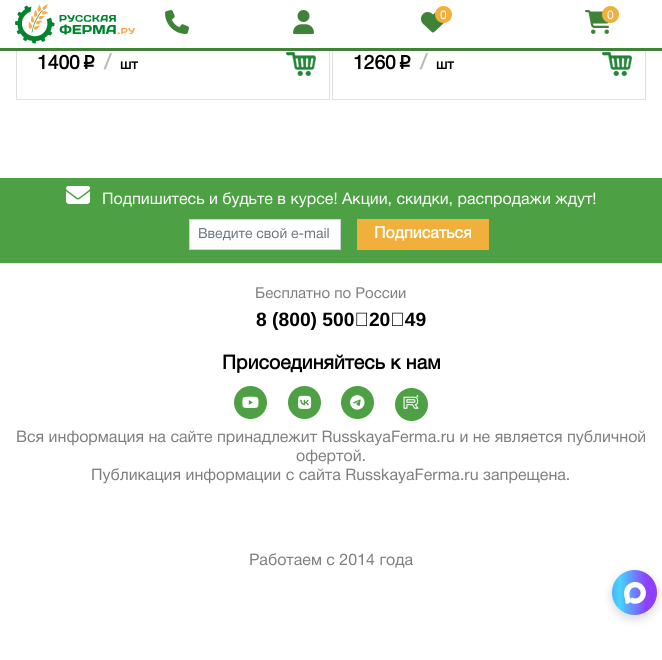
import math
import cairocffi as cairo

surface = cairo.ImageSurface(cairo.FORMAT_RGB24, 662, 660)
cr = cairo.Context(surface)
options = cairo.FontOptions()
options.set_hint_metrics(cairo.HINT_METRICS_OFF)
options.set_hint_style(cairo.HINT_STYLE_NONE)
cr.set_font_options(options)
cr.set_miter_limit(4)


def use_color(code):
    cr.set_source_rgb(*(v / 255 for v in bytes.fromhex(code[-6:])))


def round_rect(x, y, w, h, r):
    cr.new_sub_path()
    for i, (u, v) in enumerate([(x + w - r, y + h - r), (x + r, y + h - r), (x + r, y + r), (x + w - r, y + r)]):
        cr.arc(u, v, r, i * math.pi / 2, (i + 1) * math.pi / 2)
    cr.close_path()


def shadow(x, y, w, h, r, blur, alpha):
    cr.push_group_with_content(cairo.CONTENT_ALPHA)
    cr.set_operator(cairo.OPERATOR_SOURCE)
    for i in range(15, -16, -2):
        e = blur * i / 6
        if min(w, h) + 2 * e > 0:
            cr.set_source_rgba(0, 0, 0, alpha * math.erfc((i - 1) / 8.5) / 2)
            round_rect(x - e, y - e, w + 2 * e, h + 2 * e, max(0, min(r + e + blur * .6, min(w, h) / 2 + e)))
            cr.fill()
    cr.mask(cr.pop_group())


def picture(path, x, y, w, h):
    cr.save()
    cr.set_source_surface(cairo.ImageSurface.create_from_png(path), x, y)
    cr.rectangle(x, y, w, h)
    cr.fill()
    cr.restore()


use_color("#ffffff")
cr.paint()
cr.rectangle(16.5, -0.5, 313, 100)
use_color("#e0e0e0")
cr.set_line_width(1)
cr.stroke()
cr.rectangle(332.5, -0.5, 313, 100)
cr.stroke()
use_color("#ffffff")
cr.rectangle(16, 0, 630, 48)
cr.fill()
use_color("#3f8338")
cr.rectangle(0, 48, 662, 3)
cr.fill()
picture("img1.png", 15, 4, 120, 40)
picture("img2.png", 165, 10, 24, 24)
picture("img3.png", 293, 10, 21, 24)
picture("img4.png", 421, 12, 24, 21)
use_color("#f1b03c")
cr.arc(443.5, 14.5, 8.5, 0, 2 * math.pi)
cr.fill()
cr.select_font_face("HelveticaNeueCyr")
cr.set_font_size(12)
use_color("#ffffff")
cr.move_to(440, 19)
cr.show_text("0")
picture("img5.png", 585, 10, 25, 24)
use_color("#f1b03c")
cr.arc(610.5, 14.5, 8.5, 0, 2 * math.pi)
cr.fill()
use_color("#ffffff")
cr.move_to(607, 19)
cr.show_text("0")
cr.select_font_face("HelveticaNeueCyr", cairo.FONT_SLANT_NORMAL, cairo.FONT_WEIGHT_BOLD)
cr.set_font_size(19.25)
use_color("#000000")
cr.move_to(37, 69)
cr.show_text("1400")
cr.select_font_face("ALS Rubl", cairo.FONT_SLANT_NORMAL, cairo.FONT_WEIGHT_BOLD)
cr.move_to(80, 69)
cr.show_text("p")
cr.select_font_face("HelveticaNeueCyr", cairo.FONT_SLANT_NORMAL, cairo.FONT_WEIGHT_BOLD)
cr.set_font_size(21)
use_color("#b8b8b8")
cr.move_to(104, 69)
cr.show_text("/")
cr.set_font_size(14)
use_color("#000000")
cr.move_to(120, 69)
cr.show_text("шт")
picture("img6.png", 286, 52, 30, 24)
cr.set_font_size(19.25)
cr.move_to(353, 69)
cr.show_text("1260")
cr.select_font_face("ALS Rubl", cairo.FONT_SLANT_NORMAL, cairo.FONT_WEIGHT_BOLD)
cr.move_to(396, 69)
cr.show_text("p")
cr.select_font_face("HelveticaNeueCyr", cairo.FONT_SLANT_NORMAL, cairo.FONT_WEIGHT_BOLD)
cr.set_font_size(21)
use_color("#b8b8b8")
cr.move_to(420, 69)
cr.show_text("/")
cr.set_font_size(14)
use_color("#000000")
cr.move_to(436, 69)
cr.show_text("шт")
picture("img6.png", 602, 52, 30, 24)
use_color("#4da144")
cr.rectangle(0, 178, 662, 85)
cr.fill()
picture("img7.png", 66, 186, 24, 18)
cr.select_font_face("HelveticaNeueCyr")
cr.set_font_size(16)
use_color("#ffffff")
cr.move_to(102, 204)
cr.show_text("Подпишитесь и будьте в курсе! Акции, скидки, распродажи ждут!")
cr.rectangle(189.5, 219.5, 151, 30)
cr.fill_preserve()
use_color("#ced4da")
cr.stroke()
cr.set_font_size(14)
use_color("#6c757d")
cr.move_to(198, 238)
cr.show_text("Введите свой e-mail")
use_color("#f1b03c")
cr.rectangle(357, 219, 132, 31)
cr.fill()
cr.select_font_face("HelveticaNeueCyr", cairo.FONT_SLANT_NORMAL, cairo.FONT_WEIGHT_BOLD)
cr.set_font_size(16)
use_color("#ffffff")
cr.move_to(374, 238)
cr.show_text("Подписаться")
cr.select_font_face("HelveticaNeueCyr")
cr.set_font_size(15)
use_color("#7e7e7e")
cr.move_to(255, 298)
cr.show_text("Бесплатно по России")
cr.select_font_face("Liberation Sans", cairo.FONT_SLANT_NORMAL, cairo.FONT_WEIGHT_BOLD)
cr.set_font_size(19.25)
use_color("#000000")
cr.move_to(256, 326)
cr.show_text("8 (800) 500‑20‑49")
cr.select_font_face("HelveticaNeueCyr", cairo.FONT_SLANT_NORMAL, cairo.FONT_WEIGHT_BOLD)
cr.set_font_size(19.5)
cr.move_to(222, 369)
cr.show_text("Присоединяйтесь к нам")
use_color("#4da144")
cr.new_path()
cr.arc(250.5, 402.5, 16.5, 0, 2 * math.pi)
cr.fill()
picture("img8.png", 242, 396, 17, 12)
cr.arc(304.5, 402.5, 16.5, 0, 2 * math.pi)
cr.fill()
picture("img9.png", 298, 395, 14, 14)
cr.arc(357.5, 402.5, 16.5, 0, 2 * math.pi)
cr.fill()
picture("img10.png", 350, 395, 15, 15)
cr.arc(411.5, 404.5, 16.5, 0, 2 * math.pi)
cr.fill()
picture("img11.png", 403, 395, 16, 14)
cr.select_font_face("HelveticaNeueCyr")
cr.set_font_size(16)
use_color("#7e7e7e")
cr.move_to(16, 442)
cr.show_text("Вся информация на сайте принадлежит RusskayaFerma.ru и не является публичной")
cr.move_to(296, 461)
cr.show_text("офертой.")
cr.move_to(91, 480)
cr.show_text("Публикация информации с сайта RusskayaFerma.ru запрещена.")
cr.move_to(249, 565)
cr.show_text("Работаем с 2014 года")
use_color("#000000")
shadow(612, 574, 45, 45, 22.5, 5, 0.15)
gradient = cairo.LinearGradient(605, 593, 657, 593)
gradient.add_color_stop_rgba(0, 0.353, 0.549, 1, 1)
gradient.add_color_stop_rgba(0.28, 0.263, 0.839, 1, 1)
gradient.add_color_stop_rgba(0.8, 0.561, 0.247, 1, 1)
cr.set_source(gradient)
cr.arc(634.5, 592.5, 22.5, 0, 2 * math.pi)
cr.fill()
picture("img12.png", 624, 582, 22, 22)
surface.write_to_png("result.png")
